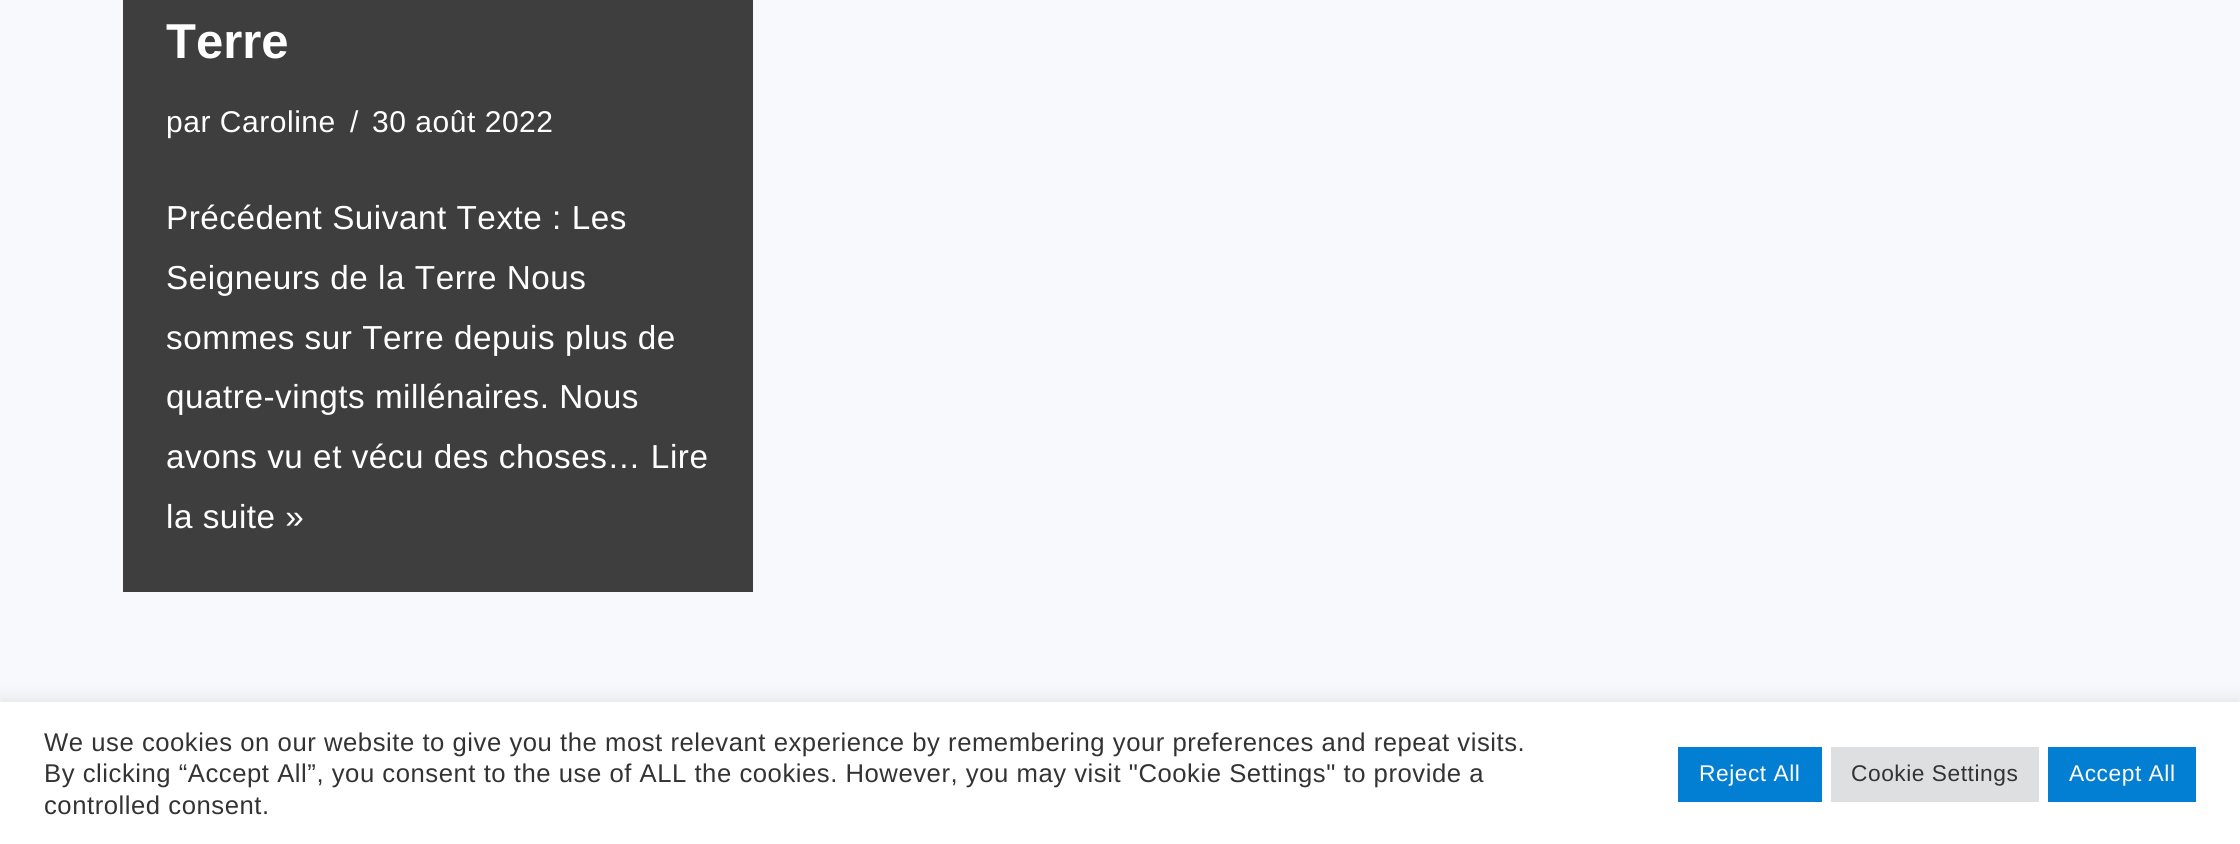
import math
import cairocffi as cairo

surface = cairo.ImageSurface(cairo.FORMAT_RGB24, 2240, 844)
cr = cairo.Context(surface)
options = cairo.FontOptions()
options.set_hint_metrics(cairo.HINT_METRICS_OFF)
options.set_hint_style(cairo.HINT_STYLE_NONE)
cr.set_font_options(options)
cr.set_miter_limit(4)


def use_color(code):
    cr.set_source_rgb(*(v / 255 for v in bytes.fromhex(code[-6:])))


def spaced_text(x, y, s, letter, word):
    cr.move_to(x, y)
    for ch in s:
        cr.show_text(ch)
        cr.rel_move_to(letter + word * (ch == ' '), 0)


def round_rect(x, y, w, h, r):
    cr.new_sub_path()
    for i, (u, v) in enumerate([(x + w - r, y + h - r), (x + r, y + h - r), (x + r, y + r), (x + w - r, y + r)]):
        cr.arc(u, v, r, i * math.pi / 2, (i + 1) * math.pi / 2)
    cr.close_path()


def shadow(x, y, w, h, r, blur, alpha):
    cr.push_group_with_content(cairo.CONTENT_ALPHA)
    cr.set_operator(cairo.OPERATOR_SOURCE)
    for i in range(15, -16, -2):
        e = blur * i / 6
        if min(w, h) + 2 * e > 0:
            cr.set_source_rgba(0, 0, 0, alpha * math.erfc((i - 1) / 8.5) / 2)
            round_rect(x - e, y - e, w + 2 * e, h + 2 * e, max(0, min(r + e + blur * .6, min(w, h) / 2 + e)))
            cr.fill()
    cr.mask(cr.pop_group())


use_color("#f8f9fd")
cr.paint()
use_color("#3e3e3f")
cr.rectangle(123, 0, 630, 592)
cr.fill()
cr.select_font_face("Liberation Sans", cairo.FONT_SLANT_NORMAL, cairo.FONT_WEIGHT_BOLD)
cr.set_font_size(49)
use_color("#ffffff")
cr.move_to(166, 58)
cr.show_text("Terre")
cr.select_font_face("Liberation Sans")
cr.set_font_size(30)
spaced_text(166, 132, "par Caroline", 0.53, 0)
spaced_text(350, 132, "/", 0.53, 0)
spaced_text(372, 132, "30 août 2022", 0.53, 0)
cr.set_font_size(33.25)
spaced_text(166, 229, "Précédent Suivant Texte : Les", 0.53, 0)
spaced_text(166, 289, "Seigneurs de la Terre Nous", 0.53, 0)
spaced_text(166, 349, "sommes sur Terre depuis plus de", 0.53, 0)
spaced_text(166, 408, "quatre-vingts millénaires. Nous", 0.53, 0)
spaced_text(166, 468, "avons vu et vécu des choses… Lire", 0.53, 0)
spaced_text(166, 528, "la suite »", 0.53, 0)
use_color("#acabab")
shadow(0, 700, 2240, 144, 0, 9, 0.3)
use_color("#ffffff")
cr.rectangle(0, 702, 2240, 142)
cr.fill()
cr.set_font_size(25.67)
use_color("#333333")
spaced_text(44, 751, "We use cookies on our website to give you the most relevant experience by remembering your preferences and repeat visits.", 0.53, 0)
spaced_text(44, 782, "By clicking “Accept All”, you consent to the use of ALL the cookies. However, you may visit \"Cookie Settings\" to provide a", 0.53, 0)
spaced_text(44, 814, "controlled consent.", 0.53, 0)
use_color("#027fd3")
cr.rectangle(1678, 747, 144, 55)
cr.fill()
cr.set_font_size(22.75)
use_color("#ffffff")
spaced_text(1699, 781, "Reject All", 0.53, 0)
use_color("#dedfe0")
cr.rectangle(1831, 747, 208, 55)
cr.fill()
use_color("#333333")
spaced_text(1851, 781, "Cookie Settings", 0.53, 0)
use_color("#027fd3")
cr.rectangle(2048, 747, 148, 55)
cr.fill()
use_color("#ffffff")
spaced_text(2069, 781, "Accept All", 0.53, 0)
surface.write_to_png("result.png")
